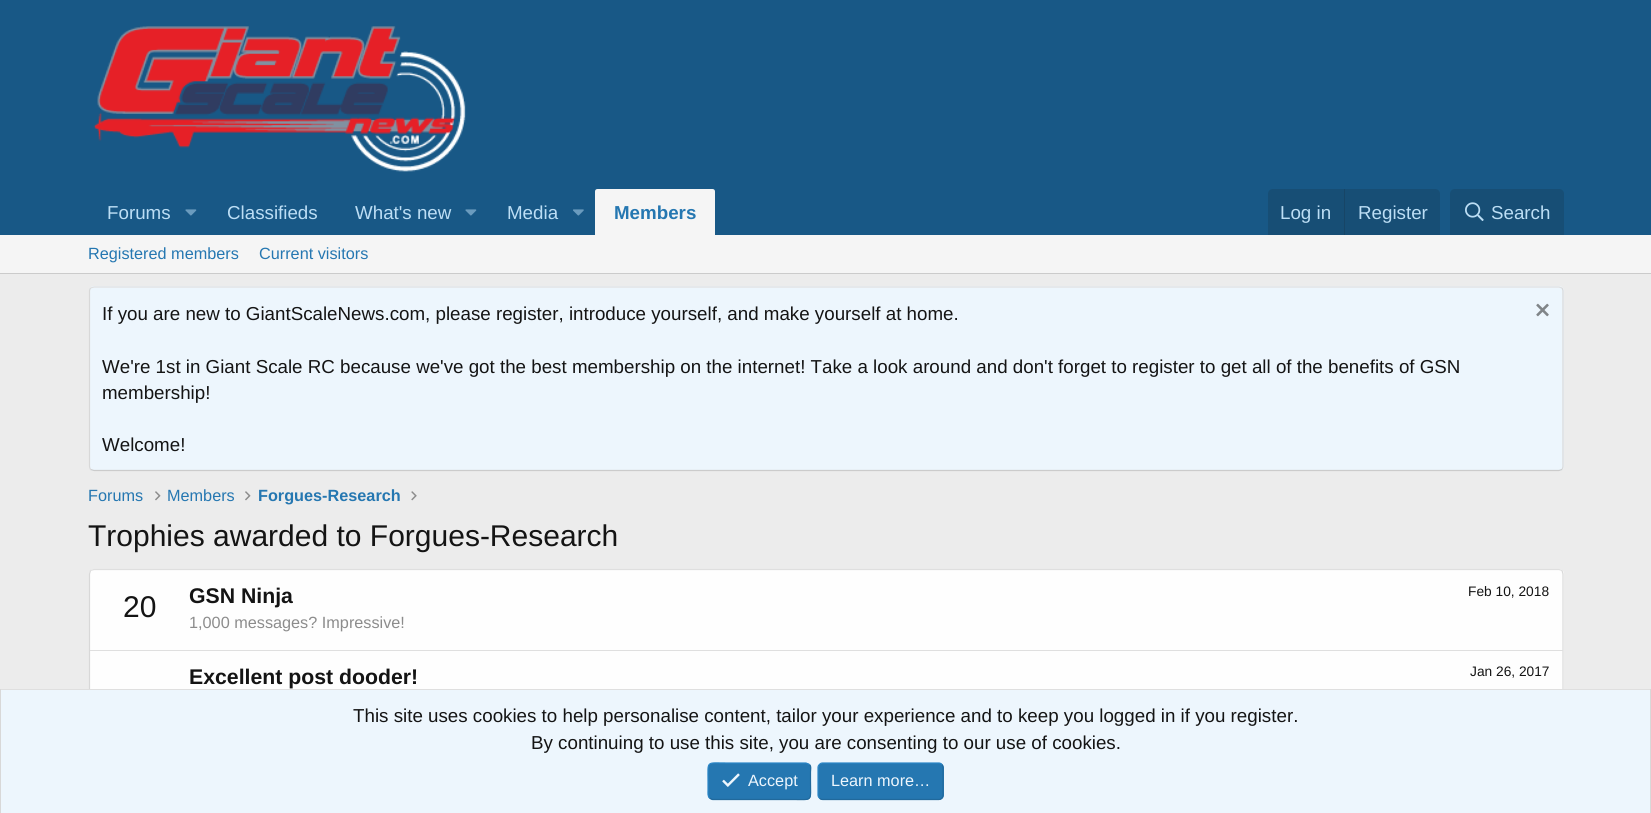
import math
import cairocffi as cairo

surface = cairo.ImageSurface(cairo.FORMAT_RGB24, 1651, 813)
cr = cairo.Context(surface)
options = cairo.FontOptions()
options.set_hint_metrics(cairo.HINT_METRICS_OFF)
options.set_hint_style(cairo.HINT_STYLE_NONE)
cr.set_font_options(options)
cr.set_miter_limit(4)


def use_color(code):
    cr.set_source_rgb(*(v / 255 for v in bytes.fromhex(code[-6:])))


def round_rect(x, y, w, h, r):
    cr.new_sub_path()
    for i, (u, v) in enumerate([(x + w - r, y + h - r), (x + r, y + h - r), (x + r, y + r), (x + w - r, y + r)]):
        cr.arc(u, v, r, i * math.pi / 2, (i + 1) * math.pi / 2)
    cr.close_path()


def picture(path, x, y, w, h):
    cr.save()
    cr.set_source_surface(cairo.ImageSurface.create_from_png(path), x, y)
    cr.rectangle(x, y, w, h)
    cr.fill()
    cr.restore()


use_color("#ececec")
cr.paint()
use_color("#185886")
cr.rectangle(0, 0, 1651, 235)
cr.fill()
picture("img1.png", 93, 26, 373, 146)
cr.select_font_face("Liberation Sans")
cr.set_font_size(18.75)
use_color("#bcdef5")
cr.move_to(107, 219)
cr.show_text("Forums")
picture("img2.png", 185, 209, 12, 7)
cr.move_to(227, 219)
cr.show_text("Classifieds")
cr.move_to(355, 219)
cr.show_text("What's new")
picture("img2.png", 465, 209, 12, 7)
cr.move_to(507, 219)
cr.show_text("Media")
picture("img3.png", 573, 209, 11, 7)
use_color("#f5f5f5")
cr.new_path()
cr.move_to(597.5, 189)
cr.line_to(712.5, 189)
cr.curve_to(714, 189, 715, 190, 715, 191.5)
cr.line_to(715, 235)
cr.line_to(595, 235)
cr.line_to(595, 191.5)
cr.curve_to(595, 190, 596, 189, 597.5, 189)
cr.close_path()
cr.fill()
cr.select_font_face("Liberation Sans", cairo.FONT_SLANT_NORMAL, cairo.FONT_WEIGHT_BOLD)
use_color("#2577b1")
cr.move_to(614, 219)
cr.show_text("Members")
use_color("#174e75")
cr.new_path()
cr.move_to(1273, 189)
cr.line_to(1435, 189)
cr.curve_to(1438, 189, 1440, 191, 1440, 194)
cr.line_to(1440, 235)
cr.line_to(1268, 235)
cr.line_to(1268, 194)
cr.curve_to(1268, 191, 1270, 189, 1273, 189)
cr.close_path()
cr.fill()
cr.select_font_face("Liberation Sans")
use_color("#bcdef5")
cr.move_to(1280, 219)
cr.show_text("Log in")
use_color("#174566")
cr.rectangle(1344, 189, 1, 46)
cr.fill()
use_color("#bcdef5")
cr.move_to(1358, 219)
cr.show_text("Register")
use_color("#174e75")
cr.new_path()
cr.move_to(1455, 189)
cr.line_to(1559, 189)
cr.curve_to(1562, 189, 1564, 191, 1564, 194)
cr.line_to(1564, 235)
cr.line_to(1450, 235)
cr.line_to(1450, 194)
cr.curve_to(1450, 191, 1452, 189, 1455, 189)
cr.close_path()
cr.fill()
picture("img4.png", 1465, 202, 19, 19)
use_color("#bcdef5")
cr.move_to(1491, 219)
cr.show_text("Search")
use_color("#f5f5f5")
cr.rectangle(0, 235, 1651, 38)
cr.fill()
use_color("#cbcbcb")
cr.rectangle(0, 273, 1651, 1)
cr.fill()
cr.set_font_size(16.25)
use_color("#2577b1")
cr.move_to(88, 259)
cr.show_text("Registered members")
cr.move_to(259, 259)
cr.show_text("Current visitors")
use_color("#edf6fd")
round_rect(89, 286, 1475, 185, 5)
cr.fill()
cr.new_path()
cr.move_to(90.5, 288)
cr.line_to(94, 287)
cr.line_to(1559, 287)
cr.line_to(1562, 288)
use_color("#dfdfdf")
cr.set_line_width(1.2)
cr.stroke()
cr.new_path()
cr.move_to(1562, 288)
cr.curve_to(1562.5, 289, 1563, 290, 1563, 291)
cr.line_to(1563, 466)
cr.curve_to(1563, 467.5, 1562.5, 468.5, 1562, 469.5)
use_color("#d8d8d8")
cr.stroke()
cr.new_path()
cr.move_to(1562, 469.5)
cr.line_to(1559, 470.5)
cr.line_to(94, 470.5)
cr.line_to(90.5, 469.5)
use_color("#cbcbcb")
cr.stroke()
cr.new_path()
cr.move_to(90.5, 469.5)
cr.curve_to(90, 468.5, 89.5, 467.5, 89.5, 466)
cr.line_to(89.5, 291)
cr.curve_to(89.5, 290, 90, 289, 90.5, 288)
use_color("#d8d8d8")
cr.stroke()
cr.set_font_size(18.75)
use_color("#141414")
cr.move_to(102, 320)
cr.show_text("If you are new to GiantScaleNews.com, please register, introduce yourself, and make yourself at home.")
picture("img5.png", 1536, 303, 13, 14)
cr.move_to(102, 373)
cr.show_text("We're 1st in Giant Scale RC because we've got the best membership on the internet! Take a look around and don't forget to register to get all of the benefits of GSN")
cr.move_to(102, 399)
cr.show_text("membership!")
cr.move_to(102, 451)
cr.show_text("Welcome!")
cr.set_font_size(16.25)
use_color("#2577b1")
cr.move_to(88, 501)
cr.show_text("Forums")
picture("img6.png", 155, 491, 6, 10)
cr.move_to(167, 501)
cr.show_text("Members")
picture("img6.png", 245, 491, 6, 10)
cr.select_font_face("Liberation Sans", cairo.FONT_SLANT_NORMAL, cairo.FONT_WEIGHT_BOLD)
cr.move_to(258, 501)
cr.show_text("Forgues-Research")
picture("img7.png", 411, 491, 6, 10)
cr.select_font_face("Liberation Sans")
cr.set_font_size(30)
use_color("#141414")
cr.move_to(88, 546)
cr.show_text("Trophies awarded to Forgues-Research")
use_color("#fefefe")
round_rect(89, 569, 1475, 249, 5)
cr.fill()
cr.new_path()
cr.move_to(90.5, 570.5)
cr.line_to(94, 569.5)
cr.line_to(1559, 569.5)
cr.line_to(1562, 570.5)
use_color("#dfdfdf")
cr.stroke()
cr.new_path()
cr.move_to(1562, 570.5)
cr.line_to(1563, 574)
cr.line_to(1563, 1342.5)
cr.line_to(1562, 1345.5)
use_color("#d8d8d8")
cr.stroke()
cr.new_path()
cr.move_to(90.5, 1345.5)
cr.line_to(89.5, 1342.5)
cr.line_to(89.5, 574)
cr.line_to(90.5, 570.5)
cr.stroke()
use_color("#141414")
cr.move_to(123, 617)
cr.show_text("20")
cr.select_font_face("Liberation Sans", cairo.FONT_SLANT_NORMAL, cairo.FONT_WEIGHT_BOLD)
cr.set_font_size(21.25)
cr.move_to(189, 603)
cr.show_text("GSN Ninja")
cr.select_font_face("Liberation Sans")
cr.set_font_size(13.75)
cr.move_to(1468, 596)
cr.show_text("Feb 10, 2018")
cr.set_font_size(16.25)
use_color("#8c8c8c")
cr.move_to(189, 628)
cr.show_text("1,000 messages? Impressive!")
use_color("#dfdfdf")
cr.rectangle(90, 650, 1473, 1)
cr.fill()
cr.select_font_face("Liberation Sans", cairo.FONT_SLANT_NORMAL, cairo.FONT_WEIGHT_BOLD)
cr.set_font_size(21.25)
use_color("#141414")
cr.move_to(189, 684)
cr.show_text("Excellent post dooder!")
cr.select_font_face("Liberation Sans")
cr.set_font_size(13.75)
cr.move_to(1470, 676)
cr.show_text("Jan 26, 2017")
use_color("#edf6fd")
cr.rectangle(1, 690, 1649, 123)
cr.fill()
use_color("#dfdfdf")
cr.rectangle(0, 689, 1651, 1)
cr.fill()
use_color("#d8d8d8")
cr.rectangle(1650, 689, 1, 124)
cr.fill()
cr.rectangle(0, 689, 1, 124)
cr.fill()
cr.set_font_size(18.75)
use_color("#141414")
cr.move_to(353, 722)
cr.show_text("This site uses cookies to help personalise content, tailor your experience and to keep you logged in if you register.")
cr.move_to(531, 749)
cr.show_text("By continuing to use this site, you are consenting to our use of cookies.")
use_color("#2577b1")
round_rect(708, 763, 103, 37, 5)
cr.fill()
cr.new_path()
cr.move_to(809.5, 764.5)
cr.curve_to(811.5, 766.5, 810.5, 769.5, 810.5, 772)
cr.line_to(810.5, 781)
cr.curve_to(810.5, 802.5, 813.5, 799.5, 790.5, 799.5)
cr.line_to(712.5, 799.5)
cr.line_to(709.5, 798)
use_color("#21699c")
cr.stroke()
cr.new_path()
cr.move_to(709.5, 798)
cr.curve_to(707.5, 796, 708, 793, 708, 790.5)
cr.line_to(708, 781)
cr.curve_to(708, 760, 705.5, 763, 728, 763)
cr.line_to(806, 763)
cr.line_to(809.5, 764.5)
use_color("#2985c6")
cr.stroke()
picture("img8.png", 722, 773, 18, 14)
cr.set_font_size(16.25)
use_color("#edf6fd")
cr.move_to(748, 786)
cr.show_text("Accept")
use_color("#2577b1")
round_rect(818, 763, 126, 37, 5)
cr.fill()
cr.new_path()
cr.move_to(942, 764.5)
cr.curve_to(942.5, 765, 943, 766.5, 943, 767.5)
cr.line_to(943, 795)
cr.curve_to(943, 796, 942.5, 797.5, 942, 798)
cr.curve_to(941, 799, 940, 799.5, 939, 799.5)
cr.line_to(822.5, 799.5)
cr.curve_to(821.5, 799.5, 820, 799, 819.5, 798)
use_color("#21699c")
cr.stroke()
cr.new_path()
cr.move_to(819.5, 798)
cr.curve_to(818.5, 797.5, 818, 796, 818, 795)
cr.line_to(818, 767.5)
cr.curve_to(818, 766.5, 818.5, 765, 819.5, 764.5)
cr.curve_to(820, 763.5, 821.5, 763, 822.5, 763)
cr.line_to(939, 763)
cr.curve_to(940, 763, 941, 763.5, 942, 764.5)
use_color("#2985c6")
cr.stroke()
use_color("#edf6fd")
cr.move_to(831, 786)
cr.show_text("Learn more…")
surface.write_to_png("result.png")
